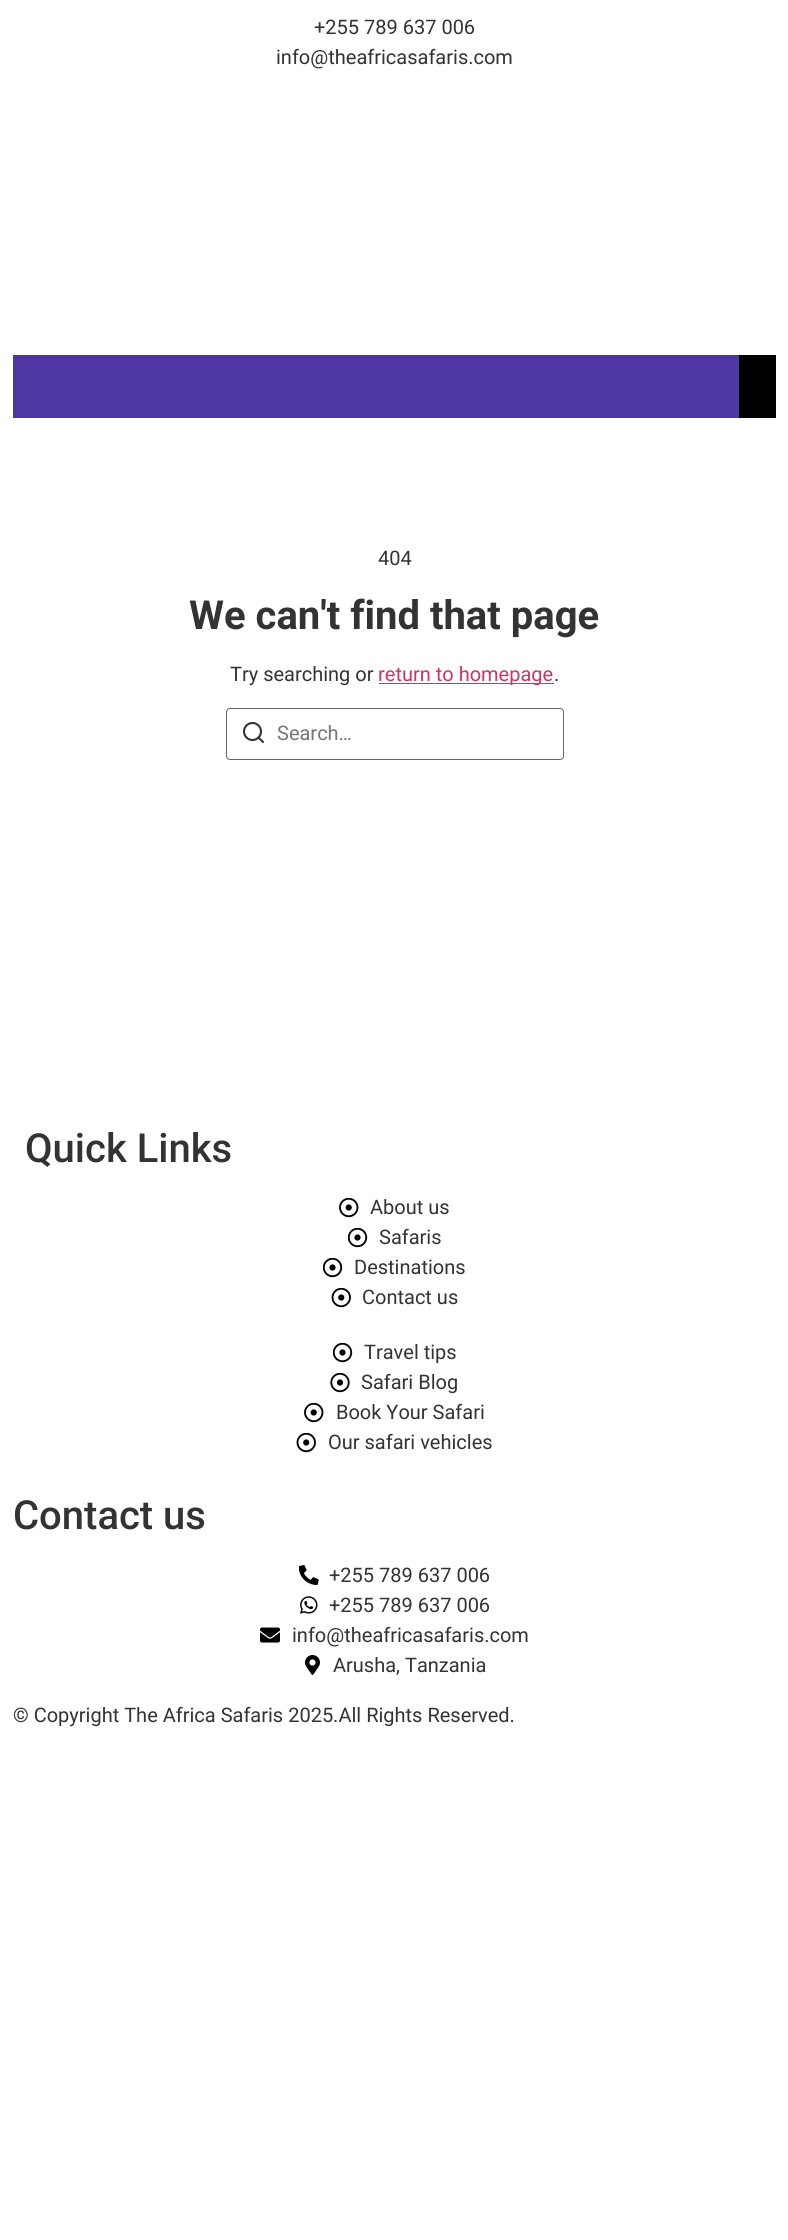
import math
import cairocffi as cairo

surface = cairo.ImageSurface(cairo.FORMAT_RGB24, 788, 2240)
cr = cairo.Context(surface)
options = cairo.FontOptions()
options.set_hint_metrics(cairo.HINT_METRICS_OFF)
options.set_hint_style(cairo.HINT_STYLE_NONE)
cr.set_font_options(options)
cr.set_miter_limit(4)


def use_color(code):
    cr.set_source_rgb(*(v / 255 for v in bytes.fromhex(code[-6:])))


def round_rect(x, y, w, h, r):
    cr.new_sub_path()
    for i, (u, v) in enumerate([(x + w - r, y + h - r), (x + r, y + h - r), (x + r, y + r), (x + w - r, y + r)]):
        cr.arc(u, v, r, i * math.pi / 2, (i + 1) * math.pi / 2)
    cr.close_path()


def picture(path, x, y, w, h):
    cr.save()
    cr.set_source_surface(cairo.ImageSurface.create_from_png(path), x, y)
    cr.rectangle(x, y, w, h)
    cr.fill()
    cr.restore()


use_color("#ffffff")
cr.paint()
cr.select_font_face("Roboto")
cr.set_font_size(20)
use_color("#333333")
cr.move_to(314, 34)
cr.show_text("+255 789 637 006")
cr.move_to(276, 64)
cr.show_text("info@theafricasafaris.com")
use_color("#4e36a3")
cr.rectangle(13, 355, 726, 63)
cr.fill()
use_color("#000000")
cr.rectangle(739, 355, 37, 63)
cr.fill()
use_color("#333333")
cr.move_to(378, 565)
cr.show_text("404")
cr.select_font_face("Roboto", cairo.FONT_SLANT_NORMAL, cairo.FONT_WEIGHT_BOLD)
cr.set_font_size(40)
cr.move_to(189, 629)
cr.show_text("We can't find that page")
cr.select_font_face("Roboto")
cr.set_font_size(20)
cr.move_to(230, 681)
cr.show_text("Try searching or")
use_color("#cc3366")
cr.rectangle(379, 683, 175, 1)
cr.fill()
cr.move_to(378, 681)
cr.show_text("return to homepage")
use_color("#333333")
cr.move_to(554, 681)
cr.show_text(".")
round_rect(226.5, 708.5, 337, 51, 3.5)
use_color("#666666")
cr.set_line_width(1)
cr.stroke()
cr.arc(252.5, 731.5, 8.5, 0, 2 * math.pi)
use_color("#333333")
cr.set_line_width(2.1)
cr.stroke()
cr.new_path()
cr.move_to(263, 742)
cr.line_to(258.5, 737.5)
cr.set_line_cap(cairo.LINE_CAP_ROUND)
cr.set_line_join(cairo.LINE_JOIN_ROUND)
cr.stroke()
use_color("#757575")
cr.move_to(277, 740)
cr.show_text("Search…")
cr.select_font_face("Roboto Medium")
cr.set_font_size(40)
use_color("#333333")
cr.move_to(25, 1162)
cr.show_text("Quick Links")
picture("img1.png", 339, 1198, 20, 20)
cr.select_font_face("Roboto")
cr.set_font_size(20)
cr.move_to(370, 1214)
cr.show_text("About us")
picture("img2.png", 348, 1228, 20, 20)
cr.move_to(379, 1244)
cr.show_text("Safaris")
picture("img2.png", 323, 1258, 20, 20)
cr.move_to(354, 1274)
cr.show_text("Destinations")
picture("img3.png", 331, 1288, 20, 20)
cr.move_to(362, 1304)
cr.show_text("Contact us")
picture("img2.png", 333, 1343, 20, 20)
cr.move_to(364, 1359)
cr.show_text("Travel tips")
picture("img4.png", 330, 1373, 20, 20)
cr.move_to(361, 1389)
cr.show_text("Safari Blog")
picture("img1.png", 304, 1403, 20, 20)
cr.move_to(336, 1419)
cr.show_text("Book Your Safari")
picture("img3.png", 296, 1433, 20, 20)
cr.move_to(328, 1449)
cr.show_text("Our safari vehicles")
cr.select_font_face("Roboto Medium")
cr.set_font_size(40)
cr.move_to(13, 1529)
cr.show_text("Contact us")
picture("img5.png", 299, 1565, 20, 20)
cr.select_font_face("Roboto")
cr.set_font_size(20)
cr.move_to(329, 1582)
cr.show_text("+255 789 637 006")
picture("img6.png", 300, 1596, 18, 18)
cr.move_to(329, 1612)
cr.show_text("+255 789 637 006")
picture("img7.png", 260, 1627, 20, 16)
cr.move_to(292, 1642)
cr.show_text("info@theafricasafaris.com")
picture("img8.png", 305, 1655, 15, 20)
cr.move_to(333, 1672)
cr.show_text("Arusha, Tanzania")
cr.move_to(13, 1722)
cr.show_text("© Copyright The Africa Safaris 2025.All Rights Reserved.")
surface.write_to_png("result.png")
